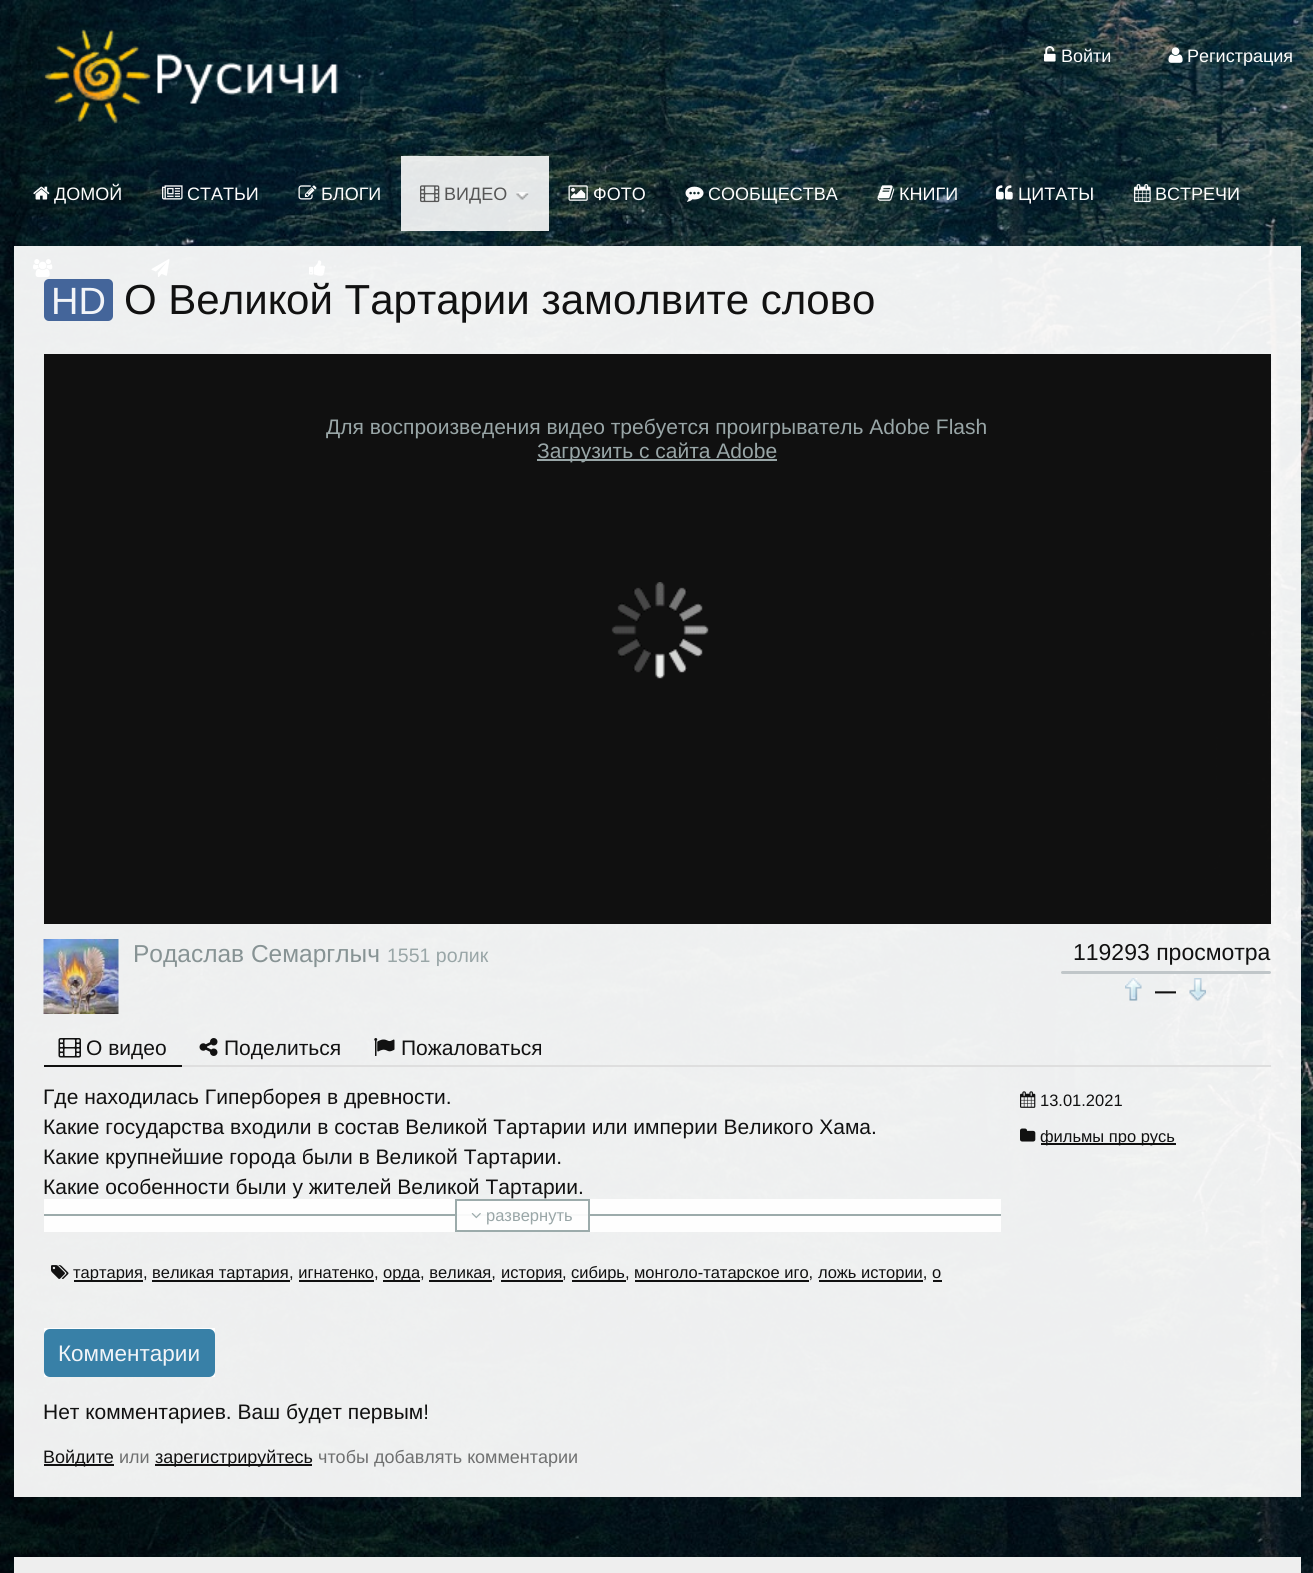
import math
import cairocffi as cairo

surface = cairo.ImageSurface(cairo.FORMAT_RGB24, 1313, 1573)
cr = cairo.Context(surface)
options = cairo.FontOptions()
options.set_hint_metrics(cairo.HINT_METRICS_OFF)
options.set_hint_style(cairo.HINT_STYLE_NONE)
cr.set_font_options(options)
cr.set_miter_limit(4)


def use_color(code):
    cr.set_source_rgb(*(v / 255 for v in bytes.fromhex(code[-6:])))


def round_rect(x, y, w, h, r):
    cr.new_sub_path()
    for i, (u, v) in enumerate([(x + w - r, y + h - r), (x + r, y + h - r), (x + r, y + r), (x + w - r, y + r)]):
        cr.arc(u, v, r, i * math.pi / 2, (i + 1) * math.pi / 2)
    cr.close_path()


def picture(path, x, y, w, h):
    cr.save()
    cr.set_source_surface(cairo.ImageSurface.create_from_png(path), x, y)
    cr.rectangle(x, y, w, h)
    cr.fill()
    cr.restore()


use_color("#ffffff")
cr.paint()
picture("img1.png", 0, 0, 1313, 1573)
picture("img2.png", 44, 29, 294, 95)
picture("img3.png", 1044, 46, 12, 16)
cr.select_font_face("Liberation Sans")
cr.set_font_size(18)
use_color("#fdfdfd")
cr.move_to(1061, 62)
cr.show_text("Войти")
picture("img4.png", 1168, 47, 15, 16)
cr.move_to(1187, 62)
cr.show_text("Регистрация")
picture("img5.png", 33, 186, 17, 14)
cr.move_to(54, 200)
cr.show_text("ДОМОЙ")
picture("img6.png", 162, 185, 21, 15)
cr.move_to(187, 200)
cr.show_text("СТАТЬИ")
picture("img7.png", 298, 185, 19, 15)
cr.move_to(321, 200)
cr.show_text("БЛОГИ")
cr.set_source_rgba(1, 1, 1, 0.89)
cr.rectangle(401, 156, 148, 75)
cr.fill()
picture("img8.png", 516, 192, 13, 8)
picture("img9.png", 420, 185, 20, 18)
use_color("#565656")
cr.move_to(444, 200)
cr.show_text("ВИДЕО")
picture("img10.png", 568, 185, 20, 16)
use_color("#fdfdfd")
cr.move_to(593, 200)
cr.show_text("ФОТО")
picture("img11.png", 685, 186, 19, 16)
cr.move_to(708, 200)
cr.show_text("СООБЩЕСТВА")
picture("img12.png", 877, 185, 18, 16)
cr.move_to(899, 200)
cr.show_text("КНИГИ")
picture("img13.png", 996, 185, 17, 15)
cr.move_to(1018, 200)
cr.show_text("ЦИТАТЫ")
picture("img14.png", 1134, 184, 17, 19)
cr.move_to(1155, 200)
cr.show_text("ВСТРЕЧИ")
picture("img15.png", 33, 259, 20, 19)
picture("img16.png", 151, 259, 19, 18)
picture("img17.png", 309, 260, 17, 16)
cr.set_source_rgba(1, 1, 1, 0.93)
cr.rectangle(14, 246, 1287, 1251)
cr.fill()
cr.set_source_rgba(0.22, 0.361, 0.58, 0.93)
round_rect(44, 279, 69, 42, 5)
cr.fill()
cr.set_font_size(38)
use_color("#f2f4f8")
cr.move_to(51, 314)
cr.show_text("HD")
cr.set_font_size(42)
use_color("#111111")
cr.move_to(124, 314)
cr.show_text("О Великой Тартарии замолвите слово")
cr.set_source_rgba(0, 0, 0, 0.93)
cr.rectangle(44, 354, 1227, 570)
cr.fill()
cr.set_font_size(21)
use_color("#99a6a7")
cr.move_to(326, 434)
cr.show_text("Для воспроизведения видео требуется проигрыватель Adobe Flash")
cr.rectangle(537, 459, 240, 2)
cr.fill()
cr.move_to(537, 458)
cr.show_text("Загрузить с сайта Adobe")
picture("img18.png", 611, 582, 98, 97)
picture("img19.png", 43, 939, 76, 75)
cr.set_font_size(24.5)
use_color("#879394")
cr.move_to(133, 962)
cr.show_text("Родаслав Семарглыч")
cr.set_font_size(19.5)
use_color("#99a6a7")
cr.move_to(387, 962)
cr.show_text("1551 ролик")
cr.set_font_size(23)
use_color("#111111")
cr.move_to(1073, 960)
cr.show_text("119293 просмотра")
cr.set_source_rgba(0.741, 0.765, 0.78, 0.93)
round_rect(1061, 971, 210, 3, 1.5)
cr.fill()
picture("img20.png", 1125, 978, 17, 23)
cr.select_font_face("Liberation Sans", cairo.FONT_SLANT_NORMAL, cairo.FONT_WEIGHT_BOLD)
cr.set_font_size(21)
use_color("#111111")
cr.move_to(1155, 998)
cr.show_text("—")
picture("img21.png", 1189, 978, 17, 23)
cr.set_source_rgba(0.867, 0.867, 0.867, 0.93)
cr.rectangle(182, 1065, 1089, 2)
cr.fill()
use_color("#101010")
cr.rectangle(44, 1065, 138, 2)
cr.fill()
picture("img22.png", 58, 1038, 23, 20)
cr.select_font_face("Liberation Sans")
use_color("#111111")
cr.move_to(86, 1055)
cr.show_text("О видео")
picture("img23.png", 199, 1038, 19, 18)
cr.move_to(224, 1055)
cr.show_text("Поделиться")
picture("img24.png", 374, 1038, 21, 18)
cr.move_to(401, 1055)
cr.show_text("Пожаловаться")
cr.move_to(43, 1104)
cr.show_text("Где находилась Гиперборея в древности.")
cr.move_to(43, 1134)
cr.show_text("Какие государства входили в состав Великой Тартарии или империи Великого Хама.")
cr.move_to(43, 1164)
cr.show_text("Какие крупнейшие города были в Великой Тартарии.")
cr.move_to(43, 1194)
cr.show_text("Какие особенности были у жителей Великой Тартарии.")
cr.set_source_rgba(1, 1, 1, 0.93)
cr.rectangle(44, 1199, 957, 33)
cr.fill()
cr.set_source_rgba(0.584, 0.647, 0.651, 0.93)
cr.rectangle(44, 1214, 957, 2)
cr.fill()
cr.set_source_rgba(1, 1, 1, 0.93)
cr.rectangle(455, 1214, 135, 2)
cr.fill()
cr.rectangle(456, 1200, 133, 31)
cr.set_source_rgba(0.584, 0.647, 0.651, 0.93)
cr.stroke()
picture("img25.png", 471, 1213, 10, 6)
cr.set_font_size(16.5)
use_color("#99a6a7")
cr.move_to(486, 1221)
cr.show_text("развернуть")
picture("img26.png", 51, 1265, 18, 14)
use_color("#111111")
cr.rectangle(74, 1280, 69, 2)
cr.fill()
cr.move_to(73, 1278)
cr.show_text("тартария")
cr.move_to(143, 1278)
cr.show_text(",")
cr.set_source_rgba(0, 0, 0, 0.93)
cr.rectangle(152, 1280, 138, 2)
cr.fill()
use_color("#111111")
cr.move_to(152, 1278)
cr.show_text("великая тартария")
cr.move_to(289, 1278)
cr.show_text(", игнатенко,")
cr.set_source_rgba(0, 0, 0, 0.93)
cr.rectangle(383, 1280, 37, 2)
cr.fill()
use_color("#111111")
cr.move_to(383, 1278)
cr.show_text("орда")
cr.move_to(420, 1278)
cr.show_text(", великая,")
cr.rectangle(501, 1280, 62, 2)
cr.fill()
cr.move_to(501, 1278)
cr.show_text("история")
cr.move_to(562, 1278)
cr.show_text(",")
cr.rectangle(572, 1280, 54, 2)
cr.fill()
cr.move_to(571, 1278)
cr.show_text("сибирь")
cr.move_to(625, 1278)
cr.show_text(",")
cr.set_source_rgba(0, 0, 0, 0.93)
cr.rectangle(635, 1280, 174, 2)
cr.fill()
use_color("#111111")
cr.move_to(634, 1278)
cr.show_text("монголо-татарское иго,")
cr.rectangle(819, 1280, 104, 2)
cr.fill()
cr.move_to(818, 1278)
cr.show_text("ложь истории, о")
cr.set_source_rgba(0, 0, 0, 0.93)
cr.rectangle(299, 1280, 75, 2)
cr.fill()
use_color("#111111")
cr.rectangle(429, 1280, 63, 2)
cr.fill()
cr.rectangle(933, 1280, 9, 2)
cr.fill()
picture("img27.png", 1020, 1091, 16, 17)
cr.move_to(1040, 1106)
cr.show_text("13.01.2021")
picture("img28.png", 1020, 1128, 16, 14)
cr.set_source_rgba(0, 0, 0, 0.93)
cr.rectangle(1041, 1143, 135, 2)
cr.fill()
use_color("#111111")
cr.move_to(1040, 1142)
cr.show_text("фильмы про русь")
cr.set_source_rgba(1, 1, 1, 0.93)
cr.rectangle(44, 1328, 171, 49)
cr.fill()
use_color("#3880a7")
round_rect(44, 1329, 171, 48, 6)
cr.fill()
cr.set_font_size(22.5)
use_color("#f2f4f8")
cr.move_to(58, 1361)
cr.show_text("Комментарии")
cr.set_font_size(21)
use_color("#111111")
cr.move_to(43, 1419)
cr.show_text("Нет комментариев. Ваш будет первым!")
cr.rectangle(44, 1464, 70, 2)
cr.fill()
cr.set_font_size(18)
cr.move_to(43, 1463)
cr.show_text("Войдите")
use_color("#6f7070")
cr.move_to(119, 1463)
cr.show_text("или")
use_color("#111111")
cr.rectangle(155, 1464, 157, 2)
cr.fill()
cr.move_to(155, 1463)
cr.show_text("зарегистрируйтесь")
use_color("#6f7070")
cr.move_to(318, 1463)
cr.show_text("чтобы добавлять комментарии")
cr.set_source_rgba(1, 1, 1, 0.9)
cr.rectangle(14, 1557, 1287, 16)
cr.fill()
cr.set_source_rgba(0.937, 0.937, 0.937, 0.9)
cr.rectangle(14, 1557, 1287, 16)
cr.fill()
surface.write_to_png("result.png")
